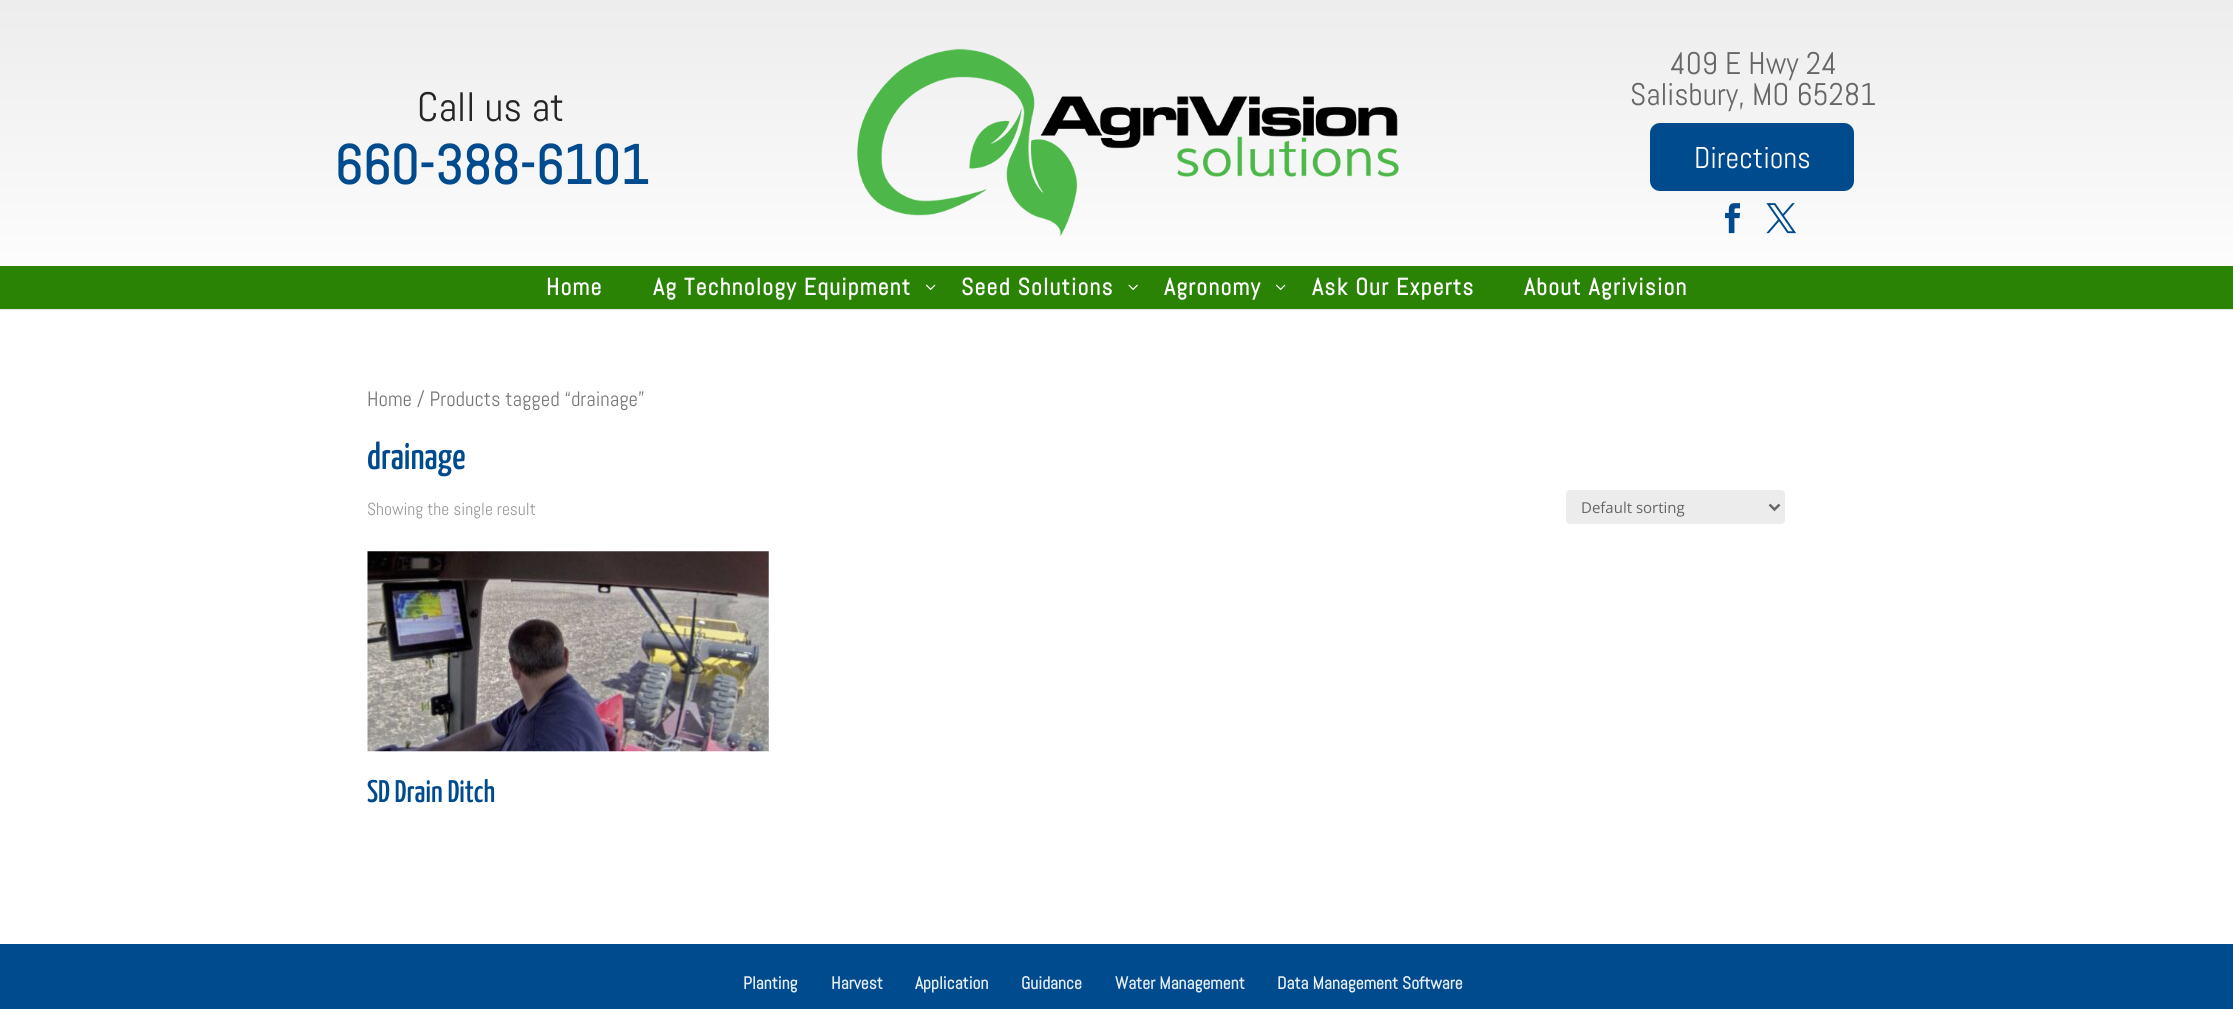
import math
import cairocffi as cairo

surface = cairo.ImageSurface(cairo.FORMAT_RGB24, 2233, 1009)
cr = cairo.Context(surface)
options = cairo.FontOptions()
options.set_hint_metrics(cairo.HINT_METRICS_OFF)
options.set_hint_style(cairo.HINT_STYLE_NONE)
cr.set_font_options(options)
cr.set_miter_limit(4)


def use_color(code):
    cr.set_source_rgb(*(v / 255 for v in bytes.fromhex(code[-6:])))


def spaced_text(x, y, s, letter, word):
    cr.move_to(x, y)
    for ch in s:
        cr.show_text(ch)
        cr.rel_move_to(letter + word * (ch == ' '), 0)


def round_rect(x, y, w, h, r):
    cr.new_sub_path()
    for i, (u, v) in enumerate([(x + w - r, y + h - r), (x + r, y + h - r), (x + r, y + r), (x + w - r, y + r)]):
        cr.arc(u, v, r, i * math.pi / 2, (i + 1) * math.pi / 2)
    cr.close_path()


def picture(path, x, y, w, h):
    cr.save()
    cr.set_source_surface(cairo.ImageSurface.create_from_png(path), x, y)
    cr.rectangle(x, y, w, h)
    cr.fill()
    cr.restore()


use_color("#ffffff")
cr.paint()
use_color("#e6e6e6")
cr.new_path()
cr.move_to(0, 309)
cr.line_to(0, 310)
cr.line_to(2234, 310)
cr.line_to(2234, 1)
cr.line_to(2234, 309)
cr.close_path()
cr.fill()
gradient = cairo.LinearGradient(1117, 0, 1117, 309)
gradient.add_color_stop_rgba(0, 0.929, 0.929, 0.929, 1)
gradient.add_color_stop_rgba(0.53, 0.965, 0.965, 0.965, 1)
gradient.add_color_stop_rgba(1, 1, 1, 1, 1)
cr.set_source(gradient)
cr.rectangle(0, 0, 2233, 266)
cr.fill()
cr.select_font_face("Abel")
cr.set_font_size(41)
use_color("#252525")
cr.move_to(417, 121)
cr.show_text("Call us at")
cr.select_font_face("Abel", cairo.FONT_SLANT_NORMAL, cairo.FONT_WEIGHT_BOLD)
cr.set_font_size(55)
use_color("#004b8d")
cr.move_to(334, 184)
cr.show_text("660-388-6101")
picture("img1.png", 857, 48, 542, 189)
cr.select_font_face("Abel")
cr.set_font_size(31.25)
use_color("#666666")
cr.move_to(1670, 74)
cr.show_text("409 E Hwy 24")
cr.move_to(1630, 105)
cr.show_text("Salisbury, MO 65281")
use_color("#004b8d")
round_rect(1650, 123, 204, 68, 10)
cr.fill()
cr.set_font_size(30)
use_color("#ffffff")
cr.move_to(1694, 168)
cr.show_text("Directions")
picture("img2.png", 1725, 203, 16, 31)
picture("img3.png", 1766, 203, 30, 31)
use_color("#2a8305")
cr.rectangle(0, 266, 2233, 43)
cr.fill()
cr.select_font_face("Abel", cairo.FONT_SLANT_NORMAL, cairo.FONT_WEIGHT_BOLD)
cr.set_font_size(23.75)
use_color("#ffffff")
spaced_text(546, 295, "Home", 1.25, 0)
spaced_text(653, 295, "Ag Technology Equipment", 1.25, 0)
picture("img4.png", 926, 284, 10, 6)
spaced_text(961, 295, "Seed Solutions", 1.25, 0)
picture("img5.png", 1128, 284, 10, 6)
spaced_text(1164, 295, "Agronomy", 1.25, 0)
picture("img4.png", 1276, 284, 10, 6)
spaced_text(1312, 295, "Ask Our Experts", 1.25, 0)
spaced_text(1524, 295, "About Agrivision", 1.25, 0)
cr.select_font_face("Abel")
cr.set_font_size(20.75)
use_color("#767676")
cr.move_to(367, 406)
cr.show_text("Home / Products tagged “drainage”")
cr.select_font_face("Yanone Kaffeesatz Medium")
cr.set_font_size(37.5)
use_color("#004b8d")
cr.move_to(367, 469)
cr.show_text("drainage")
cr.select_font_face("Abel")
cr.set_font_size(17.5)
use_color("#999999")
cr.move_to(367, 515)
cr.show_text("Showing the single result")
use_color("#ececec")
round_rect(1566, 490, 219, 34, 4)
cr.fill()
cr.new_path()
cr.move_to(1769.5, 504.5)
cr.line_to(1774.5, 509.5)
cr.line_to(1779.5, 504.5)
use_color("#666666")
cr.set_line_width(2.5)
cr.stroke()
cr.select_font_face("Open Sans")
cr.set_font_size(15)
cr.move_to(1581, 513)
cr.show_text("Default sorting")
picture("img6.png", 367, 551, 402, 201)
cr.select_font_face("Yanone Kaffeesatz Medium")
cr.set_font_size(31.25)
use_color("#004b8d")
cr.move_to(367, 802)
cr.show_text("SD Drain Ditch")
cr.rectangle(0, 944, 2233, 65)
cr.fill()
cr.select_font_face("Abel", cairo.FONT_SLANT_NORMAL, cairo.FONT_WEIGHT_BOLD)
cr.set_font_size(17.5)
use_color("#e6edf4")
cr.move_to(743, 989)
cr.show_text("Planting")
cr.move_to(831, 989)
cr.show_text("Harvest")
cr.move_to(915, 989)
cr.show_text("Application")
cr.move_to(1021, 989)
cr.show_text("Guidance")
cr.move_to(1115, 989)
cr.show_text("Water Management")
cr.move_to(1277, 989)
cr.show_text("Data Management Software")
surface.write_to_png("result.png")
